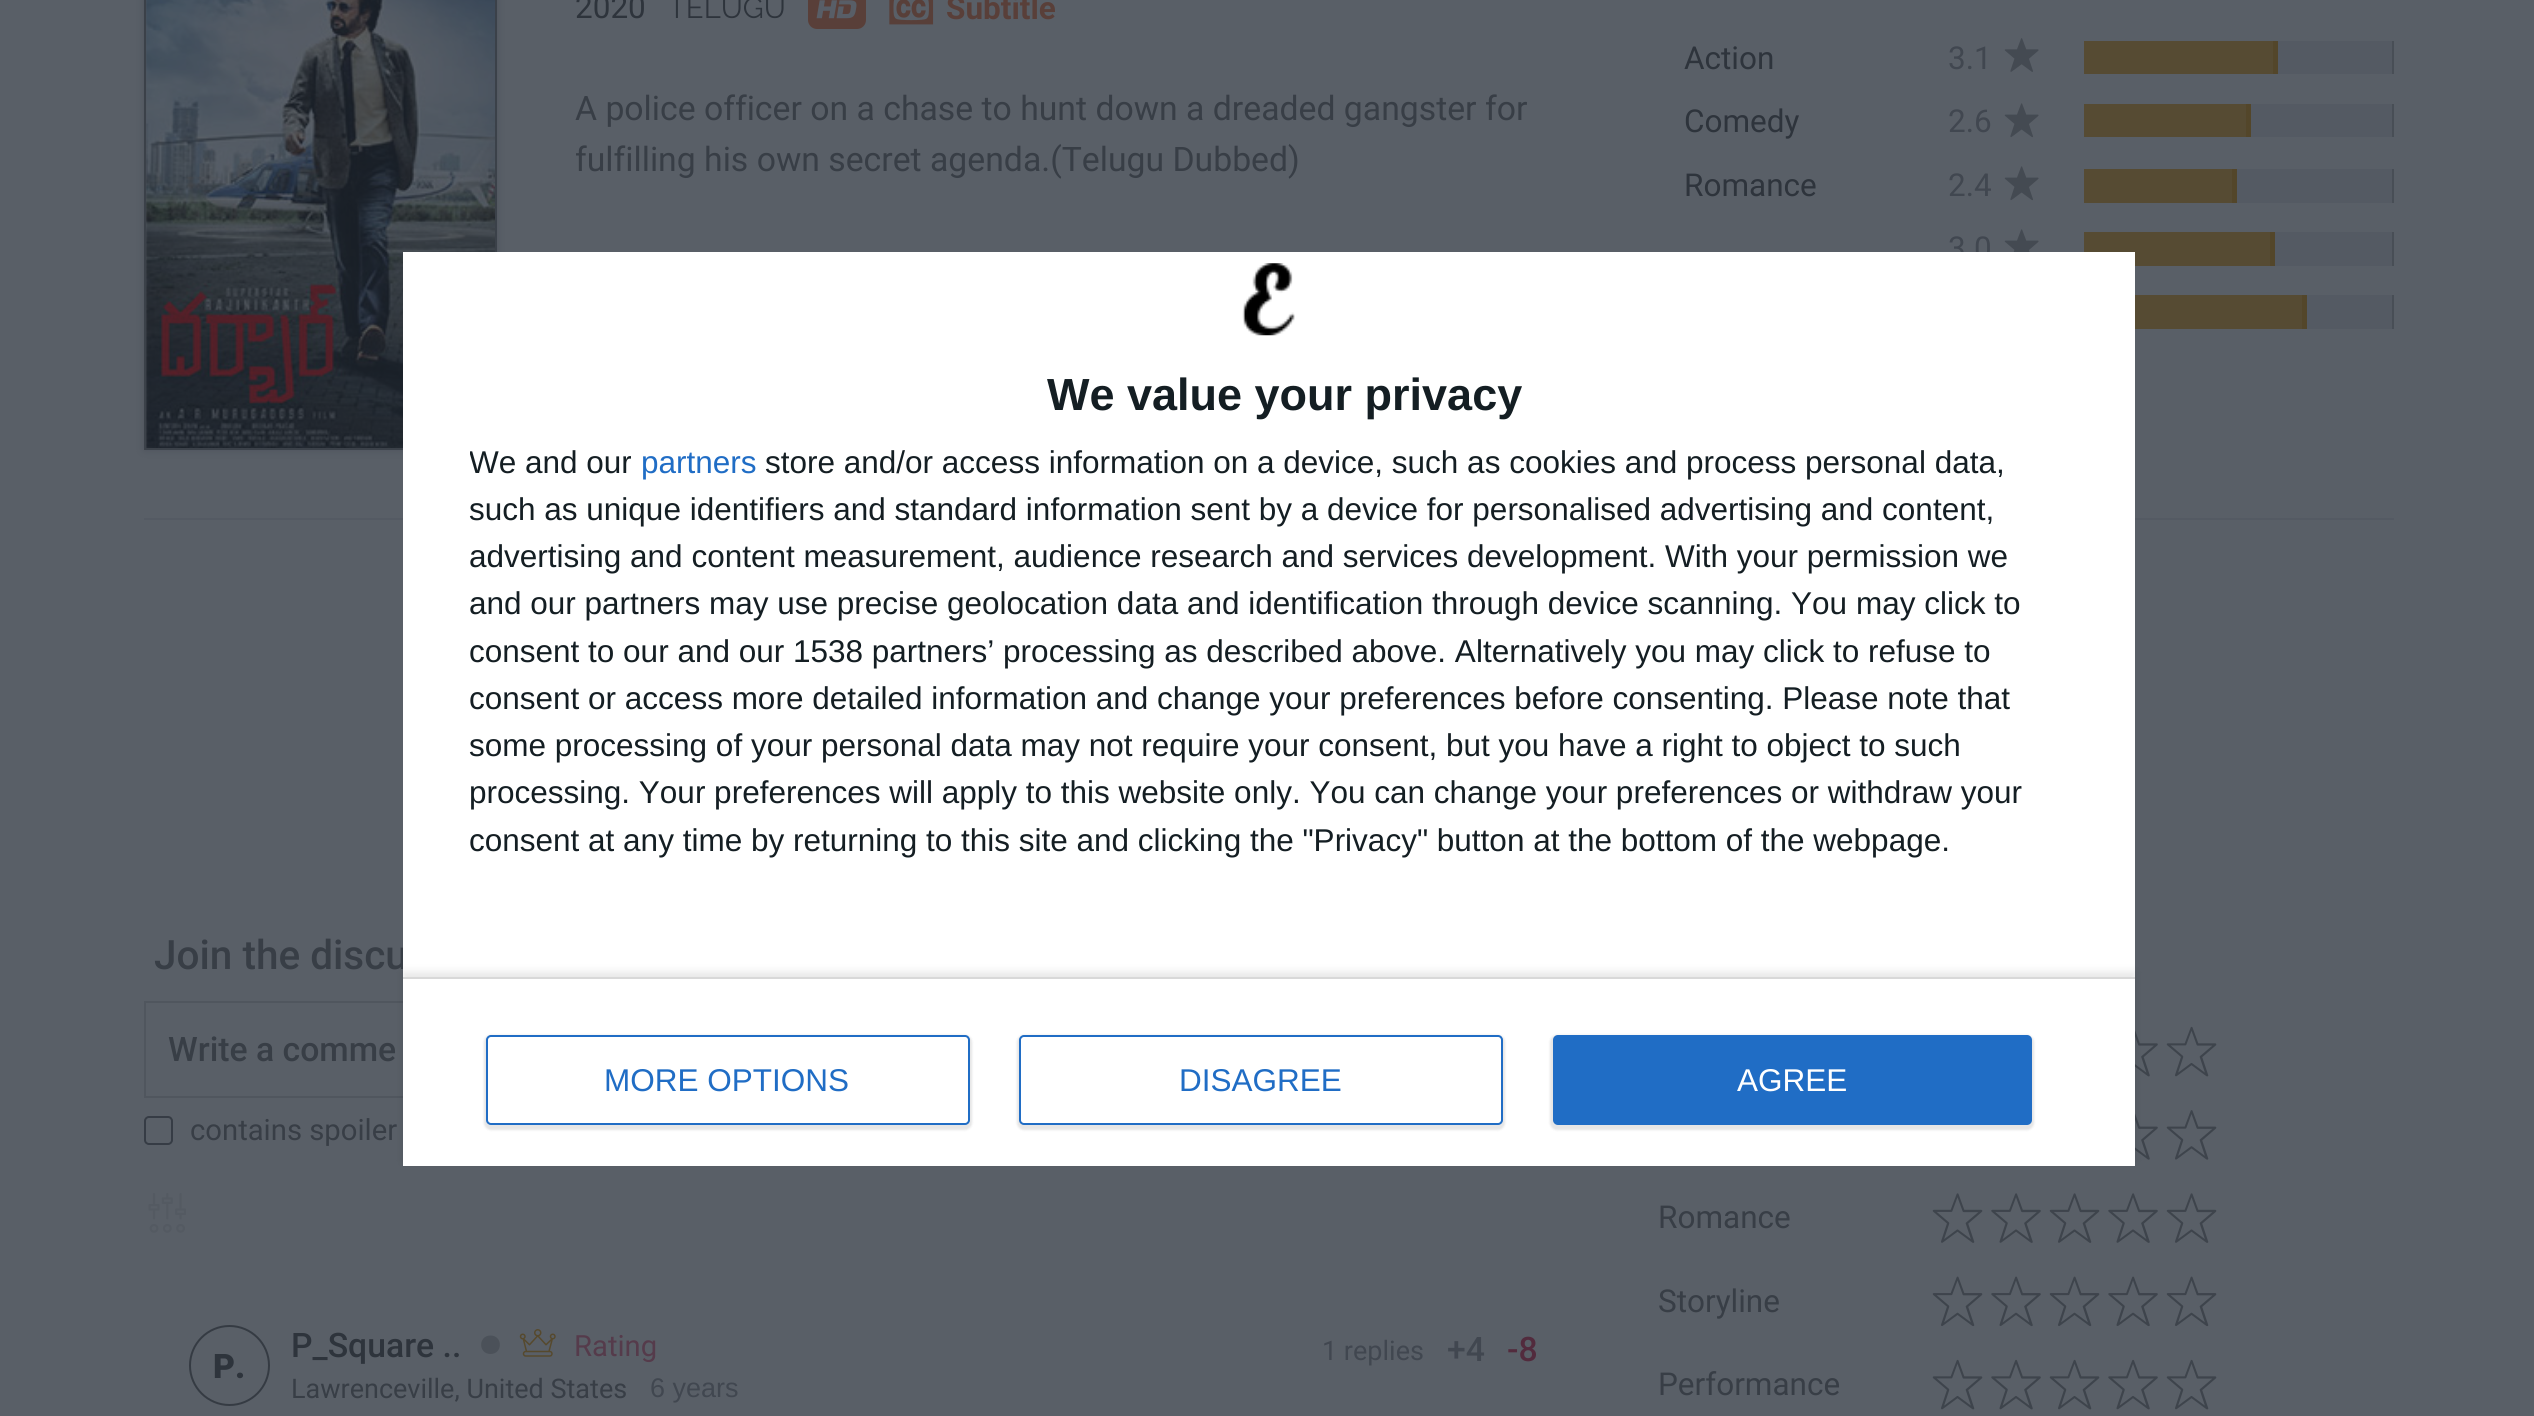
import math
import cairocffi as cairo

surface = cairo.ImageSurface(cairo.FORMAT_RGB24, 2534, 1416)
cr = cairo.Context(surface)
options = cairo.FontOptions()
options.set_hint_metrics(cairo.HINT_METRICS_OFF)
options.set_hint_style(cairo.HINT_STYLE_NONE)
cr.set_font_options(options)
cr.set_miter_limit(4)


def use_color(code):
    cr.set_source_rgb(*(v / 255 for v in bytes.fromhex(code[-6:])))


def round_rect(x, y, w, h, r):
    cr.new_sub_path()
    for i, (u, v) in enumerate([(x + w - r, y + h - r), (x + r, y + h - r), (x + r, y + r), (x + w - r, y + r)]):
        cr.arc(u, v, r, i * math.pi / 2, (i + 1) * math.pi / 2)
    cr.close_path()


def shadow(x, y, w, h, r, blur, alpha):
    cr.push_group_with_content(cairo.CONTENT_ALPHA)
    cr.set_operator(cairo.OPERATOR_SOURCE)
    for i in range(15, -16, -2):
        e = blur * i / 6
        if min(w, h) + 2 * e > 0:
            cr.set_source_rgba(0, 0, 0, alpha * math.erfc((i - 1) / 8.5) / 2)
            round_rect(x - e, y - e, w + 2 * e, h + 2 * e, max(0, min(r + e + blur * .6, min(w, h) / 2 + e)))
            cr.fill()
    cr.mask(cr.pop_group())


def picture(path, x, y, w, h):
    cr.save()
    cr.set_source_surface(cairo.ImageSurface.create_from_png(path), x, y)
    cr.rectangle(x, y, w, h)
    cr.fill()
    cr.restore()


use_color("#595f67")
cr.paint()
use_color("#545a63")
cr.rectangle(144, 518, 2250, 2)
cr.fill()
use_color("#191f27")
shadow(144, -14, 353, 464, 0, 4.5, 0.2)
cr.rectangle(145, -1, 351, 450)
use_color("#3b4149")
cr.stroke()
picture("img1.png", 146, 0, 349, 448)
cr.select_font_face("Roboto")
cr.set_font_size(31.5)
use_color("#2e343c")
cr.move_to(575, 18)
cr.show_text("2020")
cr.select_font_face("Raleway")
cr.set_font_size(29.25)
cr.move_to(668, 18)
cr.show_text("TELUGU")
use_color("#593f39")
round_rect(808, -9, 58, 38, 9)
cr.fill()
picture("img2.png", 816, 0, 41, 19)
picture("img3.png", 889, 0, 45, 25)
cr.select_font_face("Roboto", cairo.FONT_SLANT_NORMAL, cairo.FONT_WEIGHT_BOLD)
cr.set_font_size(31.5)
cr.move_to(946, 19)
cr.show_text("Subtitle")
cr.select_font_face("Roboto")
cr.set_font_size(33.75)
use_color("#383e46")
cr.move_to(575, 120)
cr.show_text("A police officer on a chase to hunt down a dreaded gangster for")
cr.save()
cr.rectangle(576, 86, 974, 202)
cr.clip()
cr.move_to(575, 171)
cr.show_text("fulfilling his own secret agenda.(Telugu Dubbed)")
cr.restore()
cr.set_font_size(31.5)
use_color("#2e343c")
cr.move_to(1684, 69)
cr.show_text("Action")
use_color("#414750")
cr.move_to(1948, 69)
cr.show_text("3.1")
picture("img4.png", 2004, 38, 35, 34)
use_color("#545a63")
cr.rectangle(2278, 41, 114, 33)
cr.fill()
use_color("#484e56")
cr.rectangle(2392, 41, 2, 33)
cr.fill()
use_color("#564b33")
cr.rectangle(2084, 41, 189, 33)
cr.fill()
use_color("#53462a")
cr.rectangle(2273, 41, 5, 33)
cr.fill()
use_color("#2e343c")
cr.move_to(1684, 132)
cr.show_text("Comedy")
use_color("#414750")
cr.move_to(1948, 132)
cr.show_text("2.6")
picture("img5.png", 2004, 103, 35, 35)
use_color("#545a63")
cr.rectangle(2251, 104, 141, 33)
cr.fill()
use_color("#484e56")
cr.rectangle(2392, 104, 2, 33)
cr.fill()
use_color("#564b33")
cr.rectangle(2084, 104, 162, 33)
cr.fill()
use_color("#53462a")
cr.rectangle(2246, 104, 5, 33)
cr.fill()
use_color("#2e343c")
cr.move_to(1684, 196)
cr.show_text("Romance")
use_color("#414750")
cr.move_to(1948, 196)
cr.show_text("2.4")
picture("img5.png", 2004, 166, 35, 35)
use_color("#545a63")
cr.rectangle(2237, 169, 155, 34)
cr.fill()
use_color("#484e56")
cr.rectangle(2392, 169, 2, 34)
cr.fill()
use_color("#564b33")
cr.rectangle(2084, 169, 148, 34)
cr.fill()
use_color("#53462a")
cr.rectangle(2232, 169, 5, 34)
cr.fill()
use_color("#414750")
cr.move_to(1948, 259)
cr.show_text("3.0")
picture("img6.png", 2004, 229, 35, 23)
use_color("#545a63")
cr.rectangle(2275, 232, 117, 34)
cr.fill()
use_color("#484e56")
cr.rectangle(2392, 232, 2, 34)
cr.fill()
use_color("#564b33")
cr.rectangle(2084, 232, 186, 34)
cr.fill()
use_color("#53462a")
cr.rectangle(2270, 232, 5, 34)
cr.fill()
use_color("#545a63")
cr.rectangle(2307, 295, 85, 34)
cr.fill()
use_color("#484e56")
cr.rectangle(2392, 295, 2, 34)
cr.fill()
use_color("#564b33")
cr.rectangle(2135, 295, 167, 34)
cr.fill()
use_color("#53462a")
cr.rectangle(2302, 295, 5, 34)
cr.fill()
cr.select_font_face("Roboto Medium")
cr.set_font_size(40.5)
use_color("#383e46")
cr.move_to(154, 969)
cr.show_text("Join the discu")
cr.rectangle(145, 1002, 1161, 95)
use_color("#50565e")
cr.stroke()
cr.set_font_size(33.75)
use_color("#383e46")
cr.move_to(168, 1061)
cr.show_text("Write a comme")
round_rect(145, 1117, 27, 27, 4)
use_color("#363c45")
cr.stroke()
cr.select_font_face("Roboto")
cr.set_font_size(29.25)
use_color("#383e46")
cr.move_to(190, 1140)
cr.show_text("contains spoiler")
picture("img7.png", 148, 1193, 38, 40)
cr.arc(229.5, 1365.5, 39.5, 0, 2 * math.pi)
use_color("#353b43")
cr.stroke()
cr.select_font_face("Roboto Black")
cr.set_font_size(33.75)
use_color("#2e343c")
cr.move_to(213, 1378)
cr.show_text("P.")
cr.select_font_face("Roboto Medium")
cr.move_to(291, 1357)
cr.show_text("P_Square ..")
use_color("#4b5159")
cr.new_path()
cr.move_to(490.5, 1335.5)
cr.curve_to(478, 1335.5, 478, 1354, 490.5, 1354)
cr.curve_to(503, 1354, 503, 1335.5, 490.5, 1335.5)
cr.close_path()
cr.fill()
picture("img8.png", 519, 1329, 37, 28)
cr.select_font_face("Roboto")
cr.set_font_size(29.25)
use_color("#553b4b")
cr.move_to(574, 1356)
cr.show_text("Rating")
cr.set_font_size(27)
use_color("#383e46")
cr.move_to(291, 1398)
cr.show_text("Lawrenceville, United States")
cr.select_font_face("Liberation Sans")
use_color("#414750")
cr.move_to(650, 1397)
cr.show_text("6 years")
cr.select_font_face("Roboto")
cr.move_to(1322, 1360)
cr.show_text("1 replies")
cr.select_font_face("Roboto Medium")
cr.set_font_size(33.75)
cr.move_to(1447, 1361)
cr.show_text("+4")
use_color("#522b3d")
cr.move_to(1507, 1361)
cr.show_text("-8")
picture("img9.png", 2135, 1030, 23, 47)
picture("img10.png", 2166, 1026, 51, 51)
picture("img11.png", 2135, 1113, 23, 47)
picture("img12.png", 2166, 1110, 51, 50)
cr.select_font_face("Roboto")
cr.set_font_size(31.5)
use_color("#383e46")
cr.move_to(1658, 1228)
cr.show_text("Romance")
picture("img13.png", 1932, 1193, 51, 50)
picture("img14.png", 1991, 1193, 50, 50)
picture("img13.png", 2049, 1193, 51, 50)
picture("img14.png", 2108, 1193, 50, 50)
picture("img13.png", 2166, 1193, 51, 50)
cr.move_to(1658, 1312)
cr.show_text("Storyline")
picture("img15.png", 1932, 1276, 51, 51)
picture("img16.png", 1991, 1276, 50, 51)
picture("img15.png", 2049, 1276, 51, 51)
picture("img16.png", 2108, 1276, 50, 51)
picture("img15.png", 2166, 1276, 51, 51)
cr.move_to(1658, 1395)
cr.show_text("Performance")
picture("img10.png", 1932, 1359, 51, 51)
picture("img17.png", 1991, 1359, 50, 51)
picture("img10.png", 2049, 1359, 51, 51)
picture("img17.png", 2108, 1359, 50, 51)
picture("img10.png", 2166, 1359, 51, 51)
use_color("#ffffff")
cr.rectangle(403, 252, 1732, 914)
cr.fill()
picture("img18.png", 1242, 263, 53, 73)
cr.select_font_face("Liberation Sans", cairo.FONT_SLANT_NORMAL, cairo.FONT_WEIGHT_BOLD)
cr.set_font_size(45)
use_color("#141e23")
cr.move_to(1047, 410)
cr.show_text("We value your privacy")
cr.save()
cr.rectangle(470, 439, 1598, 425)
cr.clip()
cr.select_font_face("Liberation Sans")
cr.set_font_size(31.5)
cr.move_to(469, 473)
cr.show_text("We and our")
cr.restore()
cr.select_font_face("Liberation Sans")
cr.set_font_size(31.5)
use_color("#206dc5")
cr.move_to(641, 473)
cr.show_text("partners")
use_color("#141e23")
cr.move_to(765, 473)
cr.show_text("store and/or access information on a device, such as cookies and process personal data,")
cr.move_to(469, 520)
cr.show_text("such as unique identifiers and standard information sent by a device for personalised advertising and content,")
cr.move_to(469, 567)
cr.show_text("advertising and content measurement, audience research and services development. With your permission we")
cr.move_to(469, 614)
cr.show_text("and our partners may use precise geolocation data and identification through device scanning. You may click to")
cr.move_to(469, 662)
cr.show_text("consent to our and our 1538 partners’ processing as described above. Alternatively you may click to refuse to")
cr.move_to(469, 709)
cr.show_text("consent or access more detailed information and change your preferences before consenting. Please note that")
cr.move_to(469, 756)
cr.show_text("some processing of your personal data may not require your consent, but you have a right to object to such")
cr.move_to(469, 803)
cr.show_text("processing. Your preferences will apply to this website only. You can change your preferences or withdraw your")
cr.move_to(469, 851)
cr.show_text("consent at any time by returning to this site and clicking the \"Privacy\" button at the bottom of the webpage.")
cr.save()
cr.set_fill_rule(cairo.FILL_RULE_EVEN_ODD)
cr.new_path()
cr.move_to(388, 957)
cr.line_to(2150, 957)
cr.line_to(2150, 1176)
cr.line_to(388, 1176)
cr.close_path()
cr.move_to(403, 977)
cr.line_to(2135, 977)
cr.line_to(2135, 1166)
cr.line_to(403, 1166)
cr.close_path()
cr.clip()
use_color("#000000")
shadow(403, 972, 1732, 189, 0, 4.5, 0.1)
cr.restore()
use_color("#d8d8d8")
cr.rectangle(403, 977, 1732, 2)
cr.fill()
use_color("#000000")
shadow(484, 1035, 488, 95, 7, 1, 0.1)
use_color("#ffffff")
round_rect(487, 1036, 482, 88, 4)
cr.fill_preserve()
use_color("#206dc5")
cr.stroke()
cr.move_to(604, 1091)
cr.show_text("MORE OPTIONS")
use_color("#000000")
shadow(1017, 1035, 488, 95, 7, 1, 0.1)
use_color("#ffffff")
round_rect(1020, 1036, 482, 88, 4)
cr.fill_preserve()
use_color("#206dc5")
cr.stroke()
cr.move_to(1179, 1091)
cr.show_text("DISAGREE")
use_color("#000000")
shadow(1550, 1035, 484, 95, 7, 1, 0.1)
use_color("#206dc5")
round_rect(1553, 1035, 479, 90, 5)
cr.fill()
use_color("#ffffff")
cr.move_to(1737, 1091)
cr.show_text("AGREE")
surface.write_to_png("result.png")
